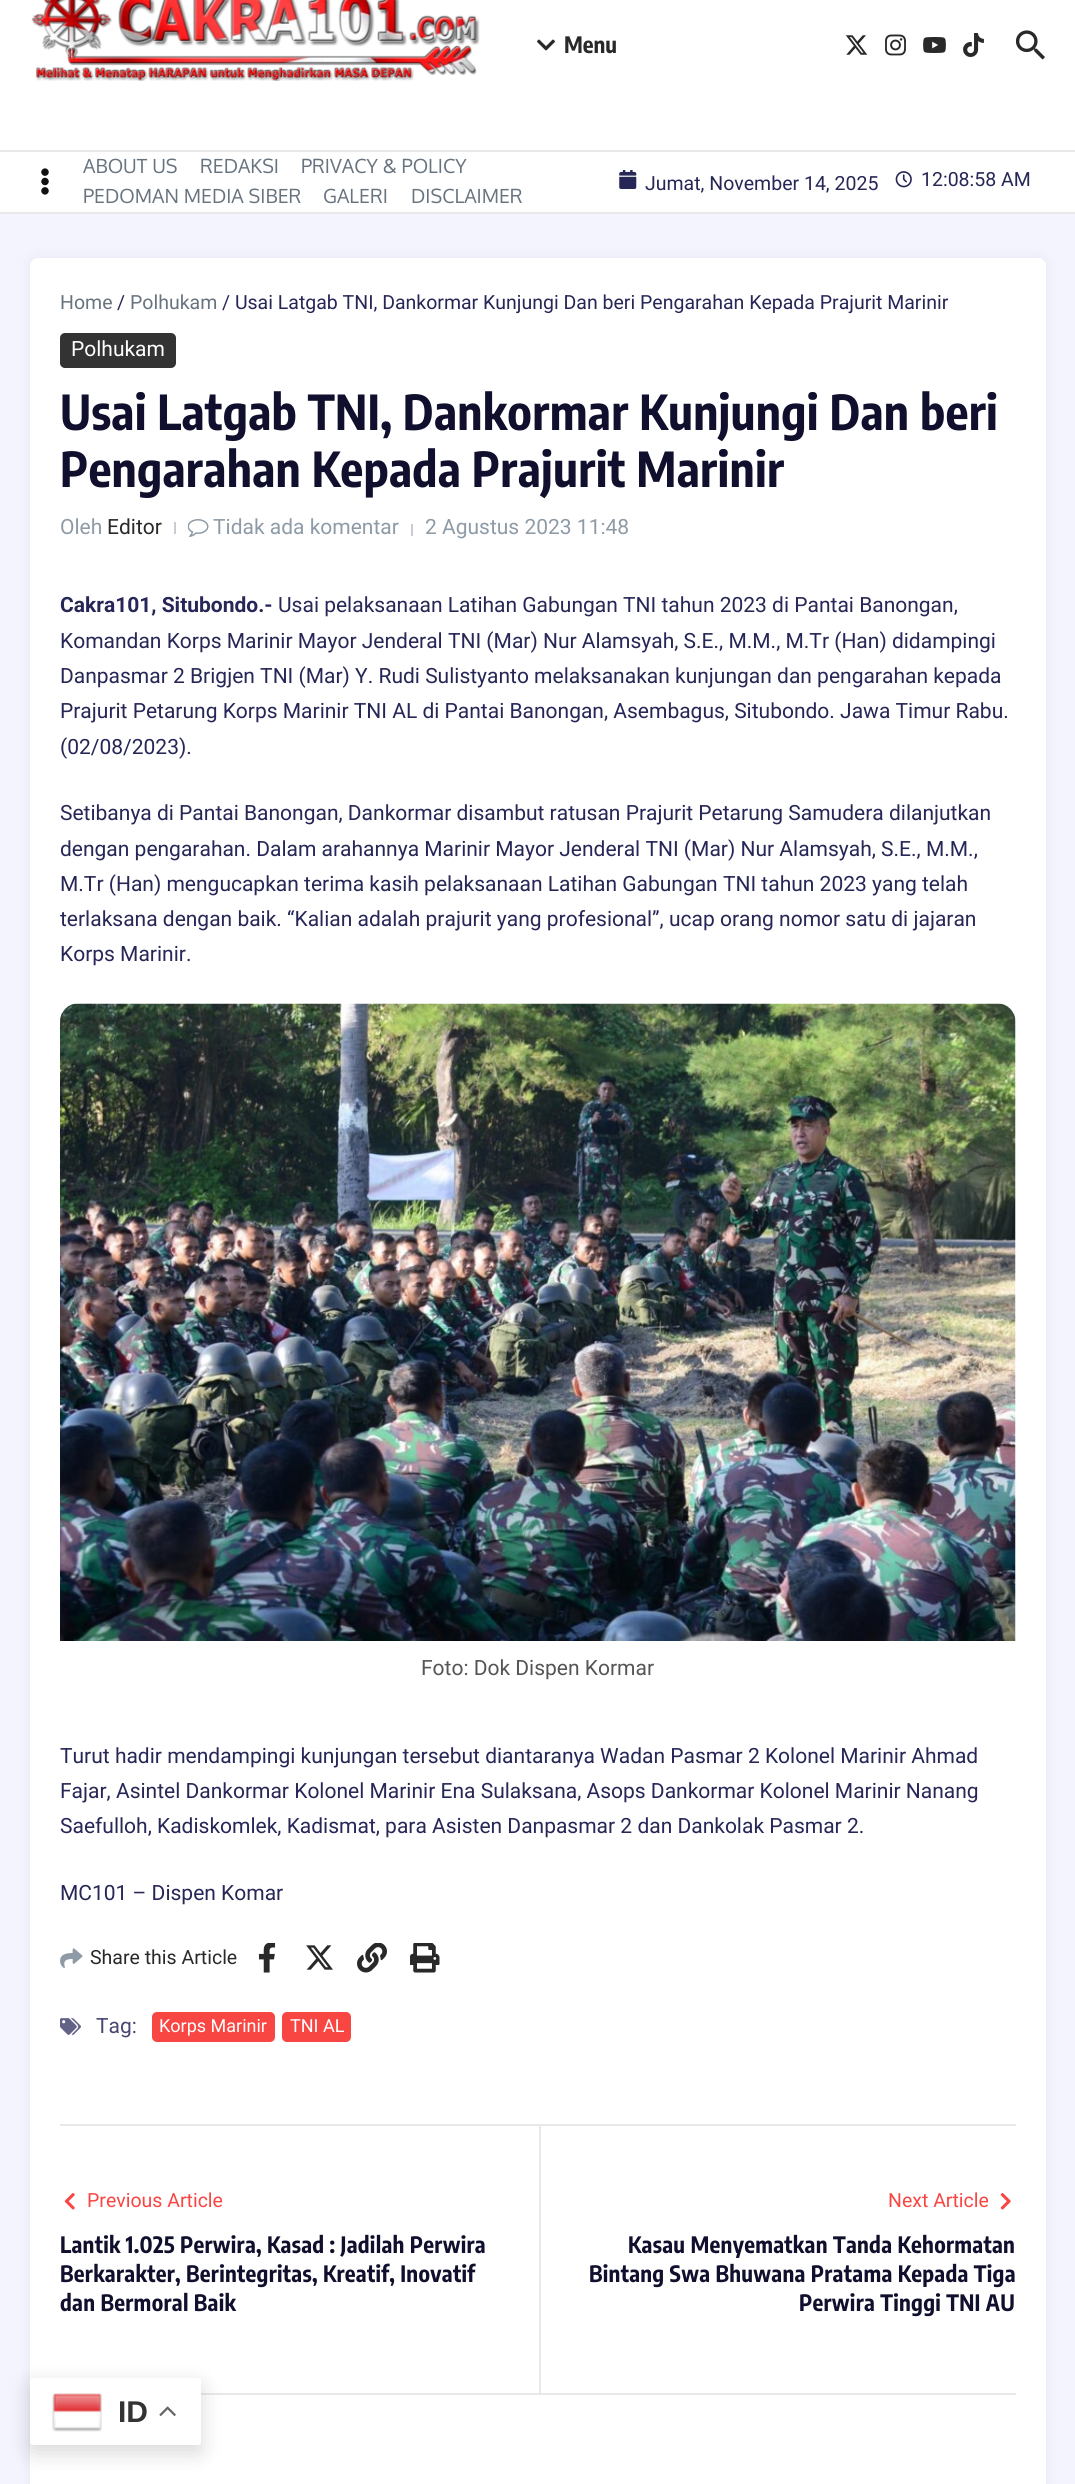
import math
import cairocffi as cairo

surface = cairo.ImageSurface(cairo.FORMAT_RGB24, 1075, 2484)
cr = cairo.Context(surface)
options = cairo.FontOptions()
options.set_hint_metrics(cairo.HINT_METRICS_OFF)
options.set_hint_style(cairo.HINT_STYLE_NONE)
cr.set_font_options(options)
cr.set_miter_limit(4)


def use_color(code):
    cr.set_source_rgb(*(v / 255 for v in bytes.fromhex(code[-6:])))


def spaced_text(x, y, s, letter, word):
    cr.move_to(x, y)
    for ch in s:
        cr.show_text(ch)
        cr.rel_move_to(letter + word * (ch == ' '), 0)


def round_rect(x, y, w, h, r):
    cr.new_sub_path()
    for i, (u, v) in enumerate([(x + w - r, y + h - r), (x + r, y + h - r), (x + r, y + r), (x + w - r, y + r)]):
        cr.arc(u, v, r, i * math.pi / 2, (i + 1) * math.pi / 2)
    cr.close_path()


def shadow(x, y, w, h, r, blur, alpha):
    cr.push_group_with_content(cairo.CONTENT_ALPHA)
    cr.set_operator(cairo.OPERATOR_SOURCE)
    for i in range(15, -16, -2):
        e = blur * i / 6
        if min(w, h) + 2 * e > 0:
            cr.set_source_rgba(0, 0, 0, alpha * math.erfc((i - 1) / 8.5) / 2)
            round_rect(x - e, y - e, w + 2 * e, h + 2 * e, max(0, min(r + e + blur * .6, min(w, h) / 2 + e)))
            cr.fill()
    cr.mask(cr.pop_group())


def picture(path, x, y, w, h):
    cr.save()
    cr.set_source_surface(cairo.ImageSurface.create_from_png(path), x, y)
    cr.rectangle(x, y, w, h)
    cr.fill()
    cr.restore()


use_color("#f4f4ff")
cr.paint()
use_color("#ffffff")
cr.rectangle(0, 0, 1075, 150)
cr.fill()
use_color("#e8e8e8")
cr.rectangle(0, 150, 1075, 2)
cr.fill()
picture("img1.png", 31, 0, 449, 81)
picture("img2.png", 537, 39, 18, 12)
cr.select_font_face("Encode Sans Condensed", cairo.FONT_SLANT_NORMAL, cairo.FONT_WEIGHT_BOLD)
cr.set_font_size(22.5)
use_color("#292929")
cr.move_to(564, 53)
cr.show_text("Menu")
picture("img3.png", 845, 35, 23, 20)
picture("img4.png", 885, 34, 21, 22)
picture("img5.png", 923, 37, 23, 16)
picture("img6.png", 963, 33, 21, 24)
picture("img7.png", 1016, 30, 29, 30)
use_color("#ffffff")
cr.rectangle(0, 152, 1075, 60)
cr.fill()
use_color("#e8e8e8")
cr.rectangle(0, 212, 1075, 2)
cr.fill()
picture("img8.png", 41, 168, 8, 27)
cr.select_font_face("Oxygen")
cr.set_font_size(19.5)
use_color("#67737e")
cr.move_to(83, 173)
cr.show_text("ABOUT US")
cr.move_to(200, 173)
cr.show_text("REDAKSI")
cr.move_to(301, 173)
cr.show_text("PRIVACY & POLICY")
cr.move_to(83, 203)
cr.show_text("PEDOMAN MEDIA SIBER")
cr.move_to(323, 203)
cr.show_text("GALERI")
cr.move_to(411, 203)
cr.show_text("DISCLAIMER")
picture("img9.png", 619, 170, 18, 19)
cr.select_font_face("Roboto")
use_color("#262657")
cr.move_to(645, 190)
cr.show_text("Jumat, November 14, 2025")
picture("img10.png", 895, 171, 17, 17)
cr.move_to(921, 186)
cr.show_text("12:08:58 AM")
use_color("#000000")
shadow(29, 257, 1018, 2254, 9, 6, 0.05)
use_color("#ffffff")
round_rect(30, 258, 1016, 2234, 8)
cr.fill()
use_color("#67737e")
cr.move_to(60, 309)
cr.show_text("Home")
use_color("#262657")
cr.move_to(117, 309)
cr.show_text("/")
use_color("#67737e")
cr.move_to(130, 309)
cr.show_text("Polhukam")
use_color("#262657")
cr.move_to(222, 309)
cr.show_text("/ Usai Latgab TNI, Dankormar Kunjungi Dan beri Pengarahan Kepada Prajurit Marinir")
use_color("#333333")
round_rect(60, 333, 116, 35, 5)
cr.fill()
cr.set_font_size(21)
use_color("#ffffff")
cr.move_to(71, 356)
cr.show_text("Polhukam")
cr.select_font_face("Encode Sans Condensed", cairo.FONT_SLANT_NORMAL, cairo.FONT_WEIGHT_BOLD)
cr.set_font_size(48)
use_color("#10102e")
spaced_text(60, 430, "Usai Latgab TNI, Dankormar Kunjungi Dan beri", 0.3, 0)
spaced_text(60, 487, "Pengarahan Kepada Prajurit Marinir", 0.3, 0)
cr.select_font_face("Roboto")
cr.set_font_size(21)
use_color("#8e9ba7")
cr.move_to(60, 534)
cr.show_text("Oleh")
use_color("#292929")
cr.move_to(107, 534)
cr.show_text("Editor")
use_color("#c7cdd3")
cr.rectangle(174, 522, 2, 12)
cr.fill()
picture("img11.png", 188, 519, 21, 18)
use_color("#8e9ba7")
cr.move_to(213, 534)
cr.show_text("Tidak ada komentar")
use_color("#c7cdd3")
cr.rectangle(411, 524, 2, 12)
cr.fill()
use_color("#8e9ba7")
cr.move_to(425, 534)
cr.show_text("2 Agustus 2023 11:48")
cr.select_font_face("Roboto", cairo.FONT_SLANT_NORMAL, cairo.FONT_WEIGHT_BOLD)
use_color("#262657")
cr.move_to(60, 612)
cr.show_text("Cakra101, Situbondo.-")
cr.select_font_face("Roboto")
cr.move_to(278, 612)
cr.show_text("Usai pelaksanaan Latihan Gabungan TNI tahun 2023 di Pantai Banongan,")
cr.move_to(60, 648)
cr.show_text("Komandan Korps Marinir Mayor Jenderal TNI (Mar) Nur Alamsyah, S.E., M.M., M.Tr (Han) didampingi")
cr.move_to(60, 683)
cr.show_text("Danpasmar 2 Brigjen TNI (Mar) Y. Rudi Sulistyanto melaksanakan kunjungan dan pengarahan kepada")
cr.move_to(60, 718)
cr.show_text("Prajurit Petarung Korps Marinir TNI AL di Pantai Banongan, Asembagus, Situbondo. Jawa Timur Rabu.")
cr.move_to(60, 754)
cr.show_text("(02/08/2023).")
cr.move_to(60, 820)
cr.show_text("Setibanya di Pantai Banongan, Dankormar disambut ratusan Prajurit Petarung Samudera dilanjutkan")
cr.move_to(60, 856)
cr.show_text("dengan pengarahan. Dalam arahannya Marinir Mayor Jenderal TNI (Mar) Nur Alamsyah, S.E., M.M.,")
cr.move_to(60, 891)
cr.show_text("M.Tr (Han) mengucapkan terima kasih pelaksanaan Latihan Gabungan TNI tahun 2023 yang telah")
cr.move_to(60, 926)
cr.show_text("terlaksana dengan baik. “Kalian adalah prajurit yang profesional”, ucap orang nomor satu di jajaran")
cr.move_to(60, 961)
cr.show_text("Korps Marinir.")
picture("img12.png", 60, 1003, 956, 638)
use_color("#555555")
cr.move_to(421, 1675)
cr.show_text("Foto: Dok Dispen Kormar")
use_color("#262657")
cr.move_to(60, 1763)
cr.show_text("Turut hadir mendampingi kunjungan tersebut diantaranya Wadan Pasmar 2 Kolonel Marinir Ahmad")
cr.move_to(60, 1798)
cr.show_text("Fajar, Asintel Dankormar Kolonel Marinir Ena Sulaksana, Asops Dankormar Kolonel Marinir Nanang")
cr.move_to(60, 1833)
cr.show_text("Saefulloh, Kadiskomlek, Kadismat, para Asisten Danpasmar 2 dan Dankolak Pasmar 2.")
cr.move_to(60, 1900)
cr.show_text("MC101 – Dispen Komar")
picture("img13.png", 60, 1948, 23, 20)
cr.set_font_size(19.5)
use_color("#292929")
cr.move_to(90, 1964)
cr.show_text("Share this Article")
picture("img14.png", 258, 1943, 18, 30)
picture("img15.png", 306, 1945, 27, 25)
picture("img16.png", 357, 1943, 30, 30)
picture("img17.png", 410, 1943, 30, 30)
picture("img18.png", 60, 2018, 21, 17)
cr.set_font_size(21)
use_color("#474770")
cr.move_to(96, 2033)
cr.show_text("Tag:")
use_color("#f84643")
round_rect(152, 2012, 123, 30, 5)
cr.fill()
cr.set_font_size(18)
use_color("#ffffff")
cr.move_to(159, 2032)
cr.show_text("Korps Marinir")
use_color("#f84643")
round_rect(282, 2012, 69, 30, 5)
cr.fill()
use_color("#ffffff")
cr.move_to(290, 2032)
cr.show_text("TNI AL")
use_color("#e8e8e8")
cr.rectangle(60, 2124, 956, 2)
cr.fill()
cr.rectangle(201, 2393, 815, 2)
cr.fill()
picture("img19.png", 64, 2193, 11, 17)
cr.set_font_size(19.5)
use_color("#f84643")
cr.move_to(87, 2207)
cr.show_text("Previous Article")
cr.select_font_face("Encode Sans Condensed", cairo.FONT_SLANT_NORMAL, cairo.FONT_WEIGHT_BOLD)
cr.set_font_size(22.5)
use_color("#10102e")
spaced_text(60, 2253, "Lantik 1.025 Perwira, Kasad : Jadilah Perwira", 0.3, 0)
spaced_text(60, 2282, "Berkarakter, Berintegritas, Kreatif, Inovatif", 0.3, 0)
spaced_text(60, 2311, "dan Bermoral Baik", 0.3, 0)
use_color("#e8e8e8")
cr.rectangle(539, 2126, 2, 267)
cr.fill()
cr.select_font_face("Roboto")
cr.set_font_size(19.5)
use_color("#f84643")
cr.move_to(888, 2207)
cr.show_text("Next Article")
picture("img20.png", 1000, 2193, 11, 17)
cr.select_font_face("Encode Sans Condensed", cairo.FONT_SLANT_NORMAL, cairo.FONT_WEIGHT_BOLD)
cr.set_font_size(22.5)
use_color("#10102e")
spaced_text(628, 2253, "Kasau Menyematkan Tanda Kehormatan", 0.3, 0)
spaced_text(589, 2282, "Bintang Swa Bhuwana Pratama Kepada Tiga", 0.3, 0)
spaced_text(799, 2311, "Perwira Tinggi TNI AU", 0.3, 0)
use_color("#000000")
shadow(30, 2385, 171, 68, 3, 11, 0.15)
use_color("#ffffff")
round_rect(30, 2378, 171, 67, 3)
cr.fill()
picture("img21.png", 52, 2393, 50, 39)
cr.select_font_face("Liberation Sans", cairo.FONT_SLANT_NORMAL, cairo.FONT_WEIGHT_BOLD)
cr.set_font_size(30)
use_color("#333333")
cr.move_to(118, 2422)
cr.show_text("ID")
picture("img22.png", 159, 2406, 17, 10)
surface.write_to_png("result.png")
